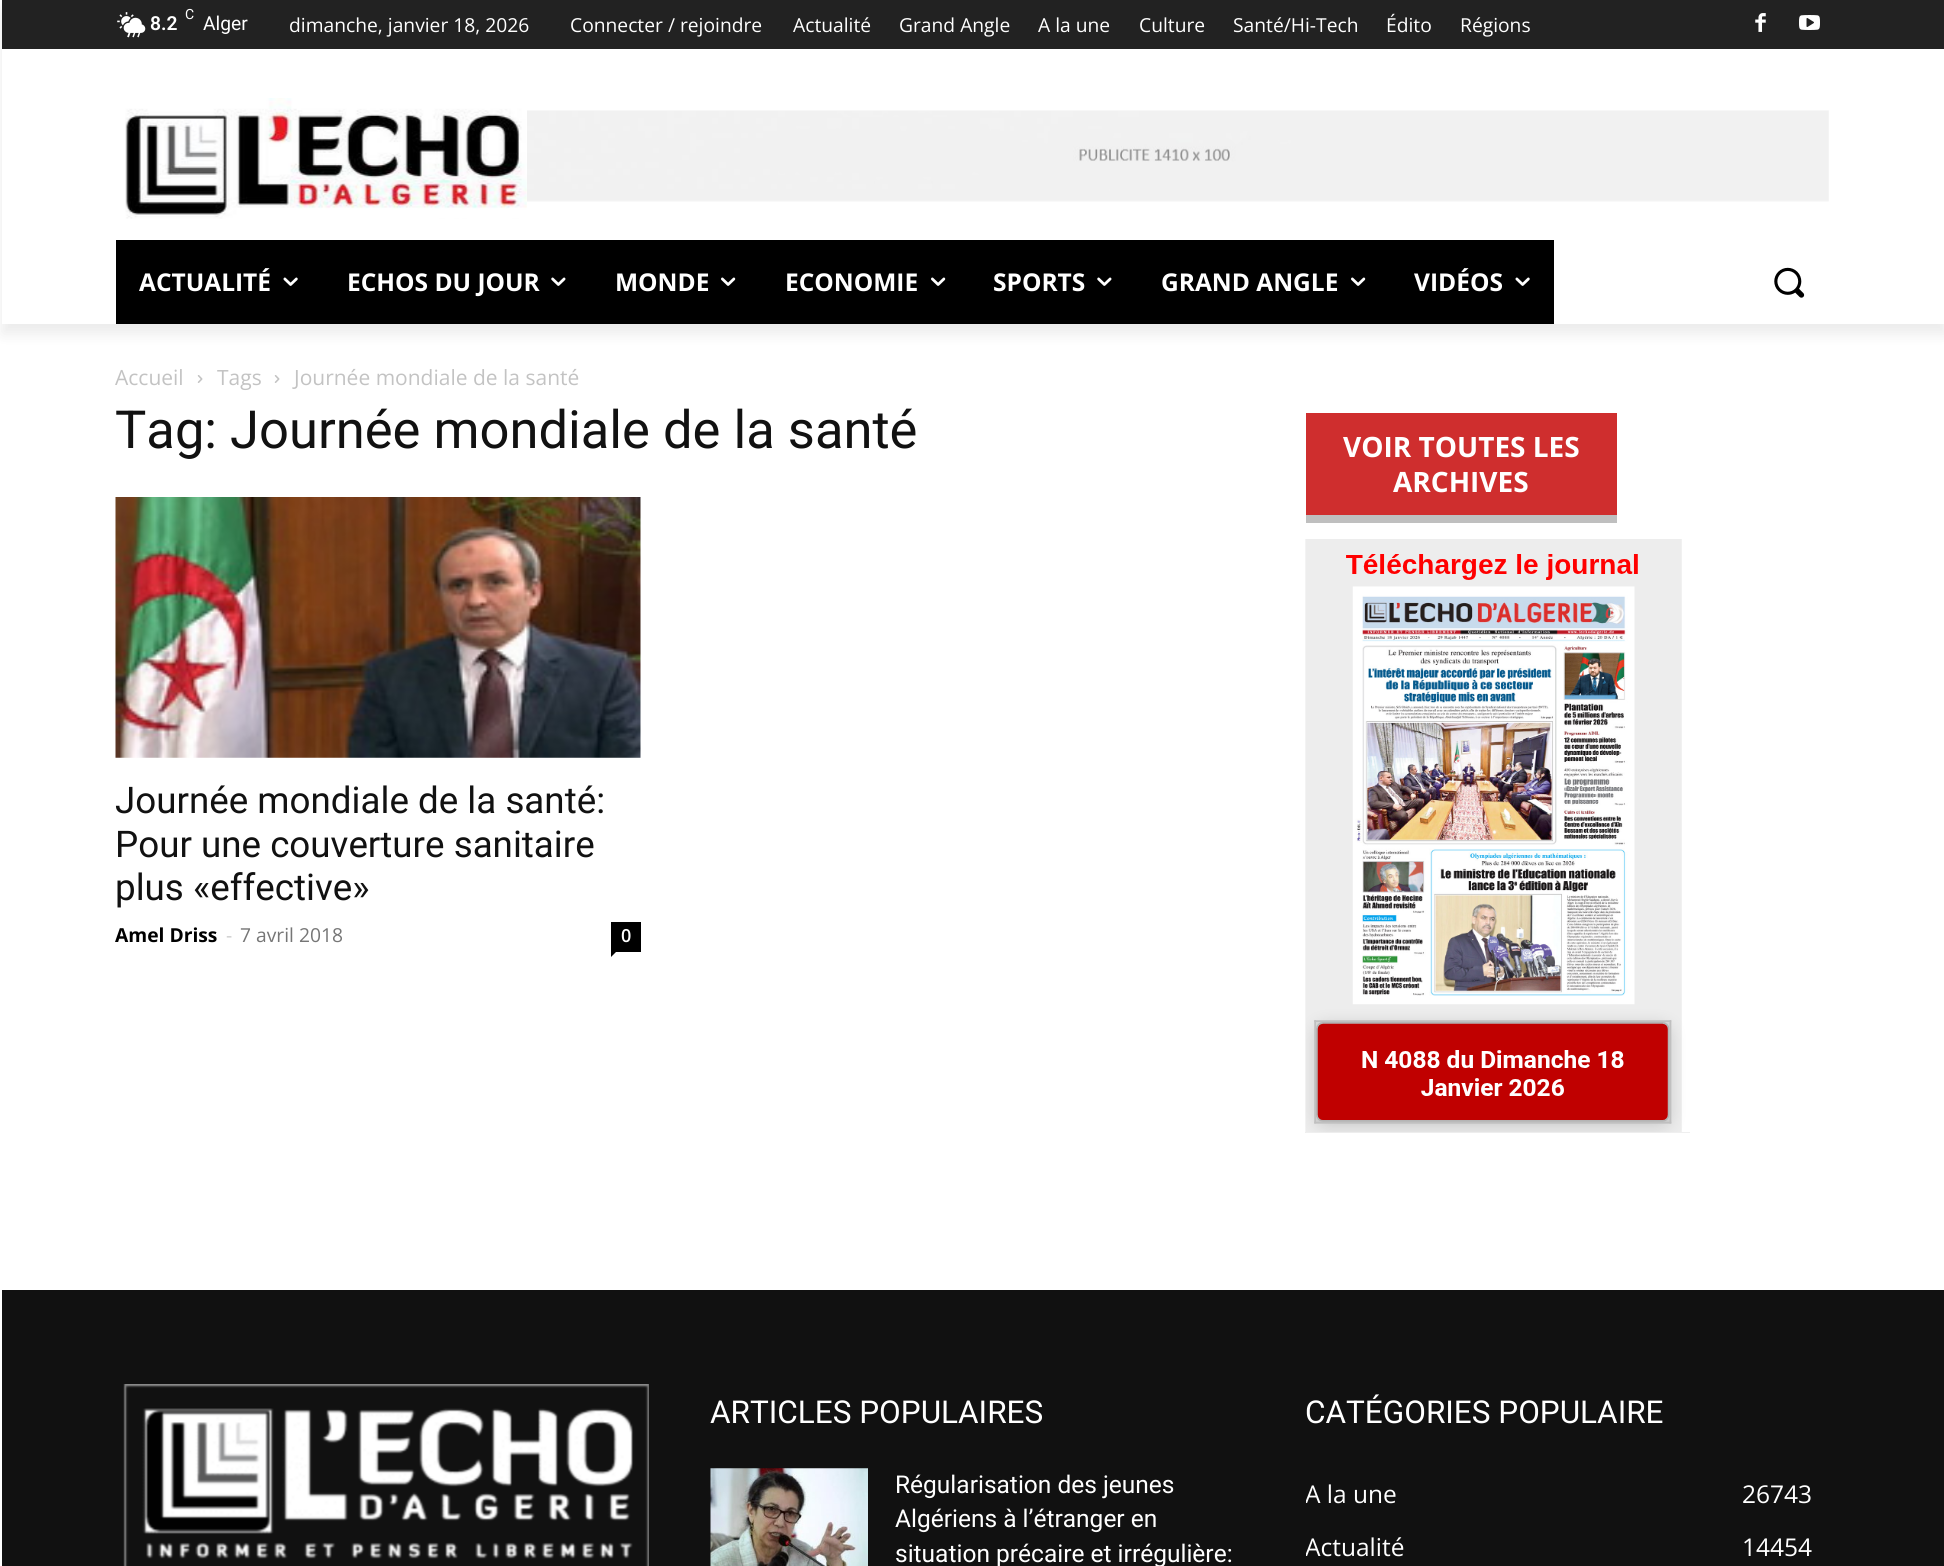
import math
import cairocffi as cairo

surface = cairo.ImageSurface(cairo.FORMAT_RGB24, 1944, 1566)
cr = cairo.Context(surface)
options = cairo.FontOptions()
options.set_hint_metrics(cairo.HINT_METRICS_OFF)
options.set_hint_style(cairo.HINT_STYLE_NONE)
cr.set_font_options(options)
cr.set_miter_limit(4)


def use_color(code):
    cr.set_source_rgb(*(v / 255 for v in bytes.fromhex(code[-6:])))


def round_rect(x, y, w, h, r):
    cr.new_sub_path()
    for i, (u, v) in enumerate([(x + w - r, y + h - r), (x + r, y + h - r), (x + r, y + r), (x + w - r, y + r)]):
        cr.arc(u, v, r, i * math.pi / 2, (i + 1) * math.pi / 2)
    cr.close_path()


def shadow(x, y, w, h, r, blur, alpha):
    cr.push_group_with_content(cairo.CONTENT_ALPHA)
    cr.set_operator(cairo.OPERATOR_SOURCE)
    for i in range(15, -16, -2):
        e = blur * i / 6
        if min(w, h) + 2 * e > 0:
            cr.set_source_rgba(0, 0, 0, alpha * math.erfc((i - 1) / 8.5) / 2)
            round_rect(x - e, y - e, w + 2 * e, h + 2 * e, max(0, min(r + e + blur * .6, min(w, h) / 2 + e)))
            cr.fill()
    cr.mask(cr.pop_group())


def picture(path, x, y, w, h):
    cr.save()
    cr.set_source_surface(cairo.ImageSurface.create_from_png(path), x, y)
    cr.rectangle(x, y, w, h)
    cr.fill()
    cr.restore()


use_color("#ffffff")
cr.paint()
use_color("#222222")
cr.rectangle(2, 0, 1942, 49)
cr.fill()
picture("img1.png", 117, 12, 29, 26)
picture("img2.png", 1755, 13, 11, 19)
picture("img3.png", 1799, 15, 21, 15)
picture("img4.png", 125, 98, 402, 121)
picture("img5.png", 527, 110, 1302, 92)
cr.save()
cr.set_fill_rule(cairo.FILL_RULE_EVEN_ODD)
cr.new_path()
cr.move_to(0, 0)
cr.line_to(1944, 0)
cr.line_to(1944, 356)
cr.line_to(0, 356)
cr.close_path()
cr.move_to(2, 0)
cr.line_to(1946, 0)
cr.line_to(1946, 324)
cr.line_to(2, 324)
cr.close_path()
cr.clip()
use_color("#000000")
shadow(2, 11, 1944, 323, 0, 7, 0.08)
cr.restore()
cr.select_font_face("Roboto")
cr.set_font_size(14)
use_color("#ffffff")
cr.move_to(185, 19)
cr.show_text("C")
cr.select_font_face("Roboto SemiBold")
cr.set_font_size(19.25)
cr.move_to(150, 30)
cr.show_text("8.2")
cr.select_font_face("Roboto")
cr.move_to(203, 30)
cr.show_text("Alger")
cr.select_font_face("Open Sans")
cr.move_to(289, 32)
cr.show_text("dimanche, janvier 18, 2026")
cr.move_to(570, 32)
cr.show_text("Connecter / rejoindre")
cr.move_to(793, 32)
cr.show_text("Actualité")
cr.move_to(899, 32)
cr.show_text("Grand Angle")
cr.move_to(1038, 32)
cr.show_text("A la une")
cr.move_to(1139, 32)
cr.show_text("Culture")
cr.move_to(1233, 32)
cr.show_text("Santé/Hi-Tech")
cr.move_to(1386, 32)
cr.show_text("Édito")
cr.move_to(1460, 32)
cr.show_text("Régions")
use_color("#000000")
cr.rectangle(116, 240, 1438, 84)
cr.fill()
cr.select_font_face("Open Sans", cairo.FONT_SLANT_NORMAL, cairo.FONT_WEIGHT_BOLD)
cr.set_font_size(24.5)
use_color("#ffffff")
cr.move_to(139, 291)
cr.show_text("ACTUALITÉ")
picture("img6.png", 283, 277, 15, 9)
cr.move_to(347, 291)
cr.show_text("ECHOS DU JOUR")
picture("img7.png", 551, 277, 15, 9)
cr.move_to(615, 291)
cr.show_text("MONDE")
picture("img8.png", 721, 277, 15, 9)
cr.move_to(785, 291)
cr.show_text("ECONOMIE")
picture("img8.png", 931, 277, 15, 9)
cr.move_to(993, 291)
cr.show_text("SPORTS")
picture("img7.png", 1097, 277, 15, 9)
cr.move_to(1161, 291)
cr.show_text("GRAND ANGLE")
picture("img8.png", 1351, 277, 15, 9)
cr.move_to(1414, 291)
cr.show_text("VIDÉOS")
picture("img6.png", 1515, 277, 15, 9)
picture("img9.png", 1774, 267, 31, 31)
cr.select_font_face("Open Sans")
cr.set_font_size(21)
use_color("#c3c3c3")
cr.move_to(115, 385)
cr.show_text("Accueil")
picture("img10.png", 197, 375, 6, 8)
cr.move_to(217, 385)
cr.show_text("Tags")
picture("img10.png", 274, 375, 6, 8)
cr.move_to(294, 385)
cr.show_text("Journée mondiale de la santé")
cr.select_font_face("Roboto")
cr.set_font_size(52.5)
use_color("#111111")
cr.move_to(115, 448)
cr.show_text("Tag: Journée mondiale de la santé")
picture("img11.png", 115, 497, 526, 261)
cr.set_font_size(36.75)
cr.move_to(115, 813)
cr.show_text("Journée mondiale de la santé:")
cr.move_to(115, 857)
cr.show_text("Pour une couverture sanitaire")
cr.move_to(115, 900)
cr.show_text("plus «effective»")
cr.select_font_face("Open Sans", cairo.FONT_SLANT_NORMAL, cairo.FONT_WEIGHT_BOLD)
cr.set_font_size(19.25)
use_color("#000000")
cr.move_to(115, 942)
cr.show_text("Amel Driss")
cr.select_font_face("Open Sans")
use_color("#cccccc")
cr.move_to(226, 942)
cr.show_text("-")
use_color("#767676")
cr.move_to(240, 942)
cr.show_text("7 avril 2018")
use_color("#000000")
cr.rectangle(611, 922, 30, 30)
cr.fill()
cr.select_font_face("Open Sans SemiBold")
cr.set_font_size(18)
use_color("#ffffff")
cr.move_to(621, 942)
cr.show_text("0")
use_color("#000000")
cr.new_path()
cr.move_to(611, 952)
cr.line_to(616, 952)
cr.line_to(611, 957)
cr.close_path()
cr.fill()
use_color("#cf2e2e")
cr.rectangle(1306, 413, 311, 102)
cr.fill()
cr.select_font_face("Open Sans", cairo.FONT_SLANT_NORMAL, cairo.FONT_WEIGHT_BOLD)
cr.set_font_size(28)
use_color("#ffffff")
cr.move_to(1343, 457)
cr.show_text("VOIR TOUTES LES")
cr.move_to(1393, 492)
cr.show_text("ARCHIVES")
use_color("#bfbfbf")
cr.rectangle(1306, 515, 311, 8)
cr.fill()
picture("img12.png", 1305, 539, 385, 594)
use_color("#111111")
cr.rectangle(2, 1290, 1942, 276)
cr.fill()
picture("img13.png", 123, 1384, 526, 182)
cr.select_font_face("Roboto")
cr.set_font_size(31.5)
use_color("#ffffff")
cr.move_to(710, 1423)
cr.show_text("ARTICLES POPULAIRES")
picture("img14.png", 710, 1468, 158, 98)
cr.set_font_size(24.5)
cr.move_to(895, 1493)
cr.show_text("Régularisation des jeunes")
cr.move_to(895, 1527)
cr.show_text("Algériens à l’étranger en")
cr.move_to(895, 1562)
cr.show_text("situation précaire et irrégulière:")
cr.set_font_size(31.5)
cr.move_to(1305, 1423)
cr.show_text("CATÉGORIES POPULAIRE")
cr.save()
cr.rectangle(1306, 1384, 525, 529)
cr.clip()
cr.select_font_face("Open Sans")
cr.set_font_size(24.5)
cr.move_to(1305, 1503)
cr.show_text("A la une")
cr.restore()
cr.select_font_face("Open Sans")
cr.set_font_size(24.5)
cr.move_to(1742, 1503)
cr.show_text("26743")
cr.save()
cr.rectangle(1306, 1384, 525, 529)
cr.clip()
cr.move_to(1305, 1556)
cr.show_text("Actualité")
cr.restore()
cr.move_to(1742, 1556)
cr.show_text("14454")
surface.write_to_png("result.png")
